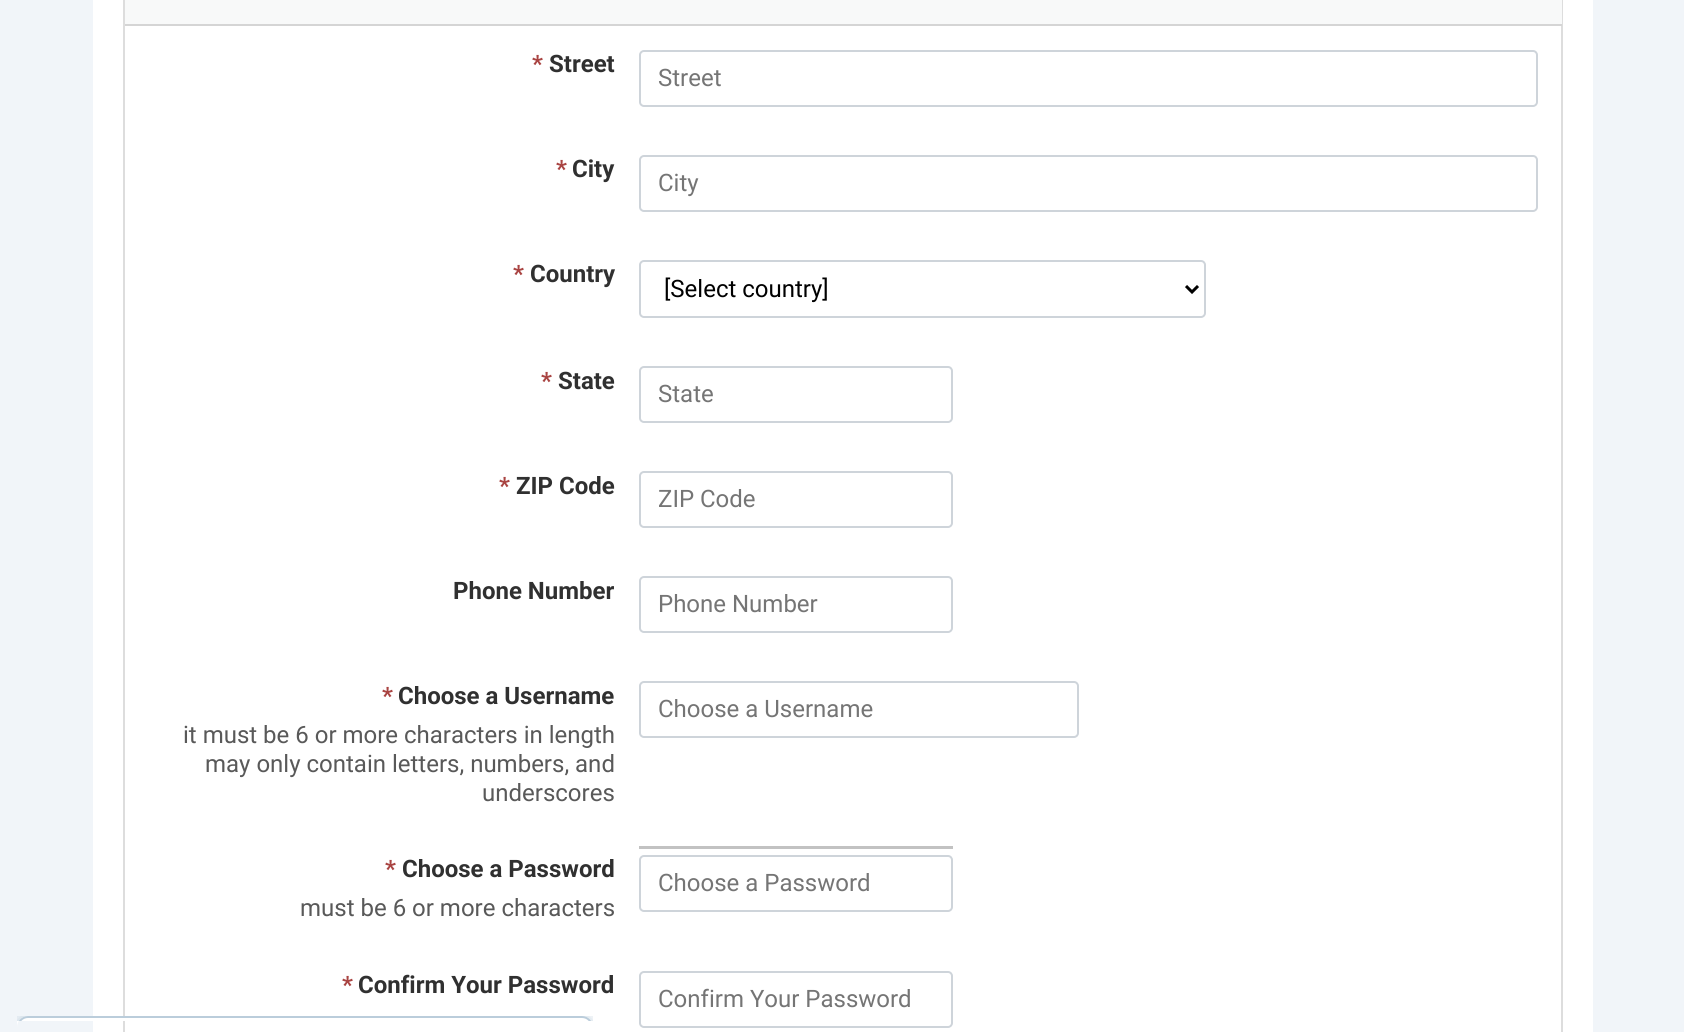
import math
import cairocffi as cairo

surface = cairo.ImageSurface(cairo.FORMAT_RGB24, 1684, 1032)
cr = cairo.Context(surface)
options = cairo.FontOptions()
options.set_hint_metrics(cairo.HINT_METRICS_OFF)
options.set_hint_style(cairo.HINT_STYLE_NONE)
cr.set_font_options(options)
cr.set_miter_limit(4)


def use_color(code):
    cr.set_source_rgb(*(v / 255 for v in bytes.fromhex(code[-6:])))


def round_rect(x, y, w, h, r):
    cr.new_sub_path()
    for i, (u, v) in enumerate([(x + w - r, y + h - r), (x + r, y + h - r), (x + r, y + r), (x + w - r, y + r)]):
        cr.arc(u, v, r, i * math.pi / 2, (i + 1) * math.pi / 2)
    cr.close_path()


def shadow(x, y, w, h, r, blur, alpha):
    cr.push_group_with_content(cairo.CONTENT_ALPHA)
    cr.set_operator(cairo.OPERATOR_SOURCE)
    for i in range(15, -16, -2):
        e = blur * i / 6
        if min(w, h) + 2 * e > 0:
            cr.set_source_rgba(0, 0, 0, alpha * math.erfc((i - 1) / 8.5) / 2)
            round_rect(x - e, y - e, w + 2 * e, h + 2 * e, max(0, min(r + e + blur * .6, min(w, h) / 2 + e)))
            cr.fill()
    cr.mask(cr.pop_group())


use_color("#f1f5f9")
cr.paint()
use_color("#ffffff")
cr.rectangle(93, 0, 1500, 1032)
cr.fill()
cr.rectangle(124, -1, 1438, 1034)
use_color("#dddddd")
cr.stroke()
use_color("#f8f9f9")
cr.rectangle(125, 0, 1437, 24)
cr.fill()
use_color("#d5d5d5")
cr.rectangle(125, 24, 1437, 2)
cr.fill()
cr.select_font_face("Roboto", cairo.FONT_SLANT_NORMAL, cairo.FONT_WEIGHT_BOLD)
cr.set_font_size(24)
use_color("#a94442")
cr.move_to(532, 72)
cr.show_text("*")
use_color("#303030")
cr.move_to(549, 72)
cr.show_text("Street")
round_rect(640, 51, 897, 55, 4)
use_color("#ced4da")
cr.stroke()
cr.select_font_face("Roboto")
use_color("#757575")
cr.move_to(658, 86)
cr.show_text("Street")
cr.select_font_face("Roboto", cairo.FONT_SLANT_NORMAL, cairo.FONT_WEIGHT_BOLD)
use_color("#a94442")
cr.move_to(556, 177)
cr.show_text("*")
use_color("#303030")
cr.move_to(572, 177)
cr.show_text("City")
round_rect(640, 156, 897, 55, 4)
use_color("#ced4da")
cr.stroke()
cr.select_font_face("Roboto")
use_color("#757575")
cr.move_to(658, 191)
cr.show_text("City")
cr.select_font_face("Roboto", cairo.FONT_SLANT_NORMAL, cairo.FONT_WEIGHT_BOLD)
use_color("#a94442")
cr.move_to(513, 282)
cr.show_text("*")
use_color("#303030")
cr.move_to(530, 282)
cr.show_text("Country")
round_rect(640, 261, 565, 56, 4)
use_color("#ced4da")
cr.stroke()
cr.new_path()
cr.move_to(1186, 286)
cr.line_to(1192, 292)
cr.line_to(1198, 286)
use_color("#000000")
cr.set_line_width(3)
cr.stroke()
cr.select_font_face("Roboto")
cr.move_to(664, 297)
cr.show_text("[Select country]")
cr.select_font_face("Roboto", cairo.FONT_SLANT_NORMAL, cairo.FONT_WEIGHT_BOLD)
use_color("#a94442")
cr.move_to(541, 389)
cr.show_text("*")
use_color("#303030")
cr.move_to(558, 389)
cr.show_text("State")
round_rect(640, 367, 312, 55, 4)
use_color("#ced4da")
cr.set_line_width(2)
cr.stroke()
cr.select_font_face("Roboto")
use_color("#757575")
cr.move_to(658, 402)
cr.show_text("State")
cr.select_font_face("Roboto", cairo.FONT_SLANT_NORMAL, cairo.FONT_WEIGHT_BOLD)
use_color("#a94442")
cr.move_to(499, 494)
cr.show_text("*")
use_color("#303030")
cr.move_to(516, 494)
cr.show_text("ZIP Code")
round_rect(640, 472, 312, 55, 4)
use_color("#ced4da")
cr.stroke()
cr.select_font_face("Roboto")
use_color("#757575")
cr.move_to(658, 507)
cr.show_text("ZIP Code")
cr.select_font_face("Roboto", cairo.FONT_SLANT_NORMAL, cairo.FONT_WEIGHT_BOLD)
use_color("#303030")
cr.move_to(453, 599)
cr.show_text("Phone Number")
round_rect(640, 577, 312, 55, 4)
use_color("#ced4da")
cr.stroke()
cr.select_font_face("Roboto")
use_color("#757575")
cr.move_to(658, 612)
cr.show_text("Phone Number")
cr.select_font_face("Roboto", cairo.FONT_SLANT_NORMAL, cairo.FONT_WEIGHT_BOLD)
use_color("#a94442")
cr.move_to(382, 704)
cr.show_text("*")
use_color("#303030")
cr.move_to(398, 704)
cr.show_text("Choose a Username")
cr.select_font_face("Roboto")
use_color("#595959")
cr.move_to(183, 743)
cr.show_text("it must be 6 or more characters in length")
cr.move_to(205, 772)
cr.show_text("may only contain letters, numbers, and")
cr.move_to(482, 801)
cr.show_text("underscores")
round_rect(640, 682, 438, 55, 4)
use_color("#ced4da")
cr.stroke()
use_color("#757575")
cr.move_to(658, 717)
cr.show_text("Choose a Username")
cr.select_font_face("Roboto", cairo.FONT_SLANT_NORMAL, cairo.FONT_WEIGHT_BOLD)
use_color("#a94442")
cr.move_to(385, 877)
cr.show_text("*")
use_color("#303030")
cr.move_to(402, 877)
cr.show_text("Choose a Password")
cr.select_font_face("Roboto")
use_color("#595959")
cr.move_to(300, 916)
cr.show_text("must be 6 or more characters")
use_color("#c2c2c2")
cr.rectangle(639, 846, 314, 3)
cr.fill()
round_rect(640, 856, 312, 55, 4)
use_color("#ced4da")
cr.stroke()
use_color("#757575")
cr.move_to(658, 891)
cr.show_text("Choose a Password")
cr.select_font_face("Roboto", cairo.FONT_SLANT_NORMAL, cairo.FONT_WEIGHT_BOLD)
use_color("#a94442")
cr.move_to(342, 993)
cr.show_text("*")
use_color("#303030")
cr.move_to(358, 993)
cr.show_text("Confirm Your Password")
round_rect(640, 972, 312, 55, 4)
use_color("#ced4da")
cr.stroke()
cr.select_font_face("Roboto")
use_color("#757575")
cr.move_to(658, 1007)
cr.show_text("Confirm Your Password")
cr.save()
cr.rectangle(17, 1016, 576, 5)
cr.clip()
use_color("#bbcddb")
shadow(17, 1016, 576, 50, 11, 7.5, 1)
cr.restore()
use_color("#ffffff")
cr.new_path()
cr.move_to(28, 1016)
cr.line_to(582, 1016)
cr.curve_to(588, 1016, 593, 1021, 593, 1027)
cr.line_to(593, 1021)
cr.line_to(17, 1021)
cr.line_to(17, 1027)
cr.curve_to(17, 1021, 22, 1016, 28, 1016)
cr.close_path()
cr.fill()
cr.save()
cr.rectangle(17, 1016, 576, 5)
cr.clip()
round_rect(18, 1017, 574, 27, 10)
use_color("#bbcddb")
cr.stroke()
cr.restore()
surface.write_to_png("result.png")
